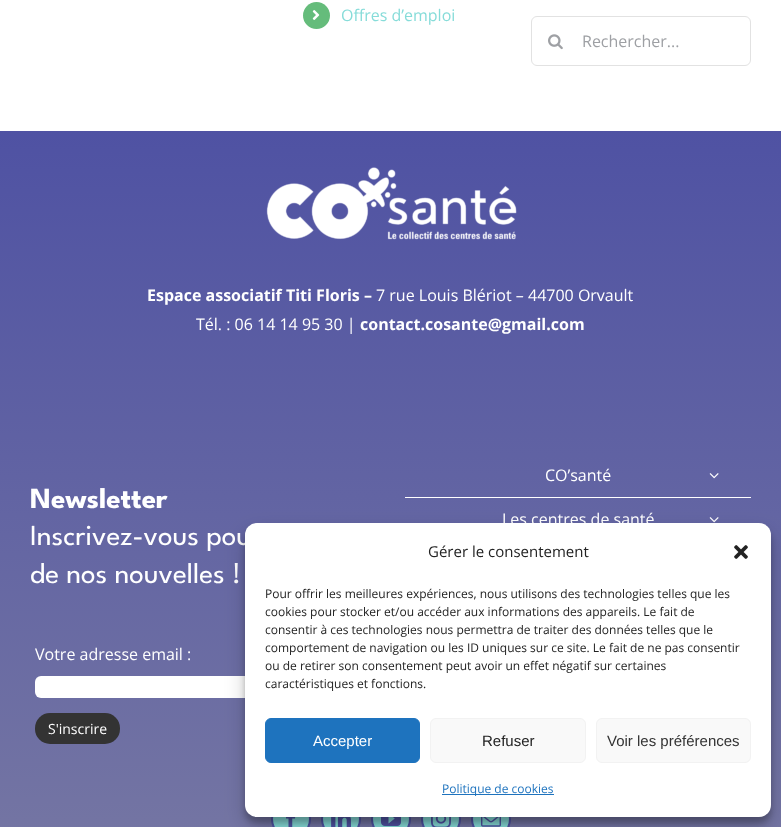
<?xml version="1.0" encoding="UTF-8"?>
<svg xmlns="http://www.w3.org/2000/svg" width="781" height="827">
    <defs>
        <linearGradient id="g1" gradientUnits="userSpaceOnUse" x1="390" y1="131" x2="391" y2="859"><stop offset="0" stop-color="#4F52A3"/><stop offset="1" stop-color="#7576A3"/></linearGradient>
        <filter id="blur1" x="-50%" y="-200%" width="200%" height="500%"><feGaussianBlur stdDeviation="3"/></filter>
        <filter id="blur2" x="-50%" y="-200%" width="200%" height="500%"><feGaussianBlur stdDeviation="10"/></filter>
    </defs>
    <rect width="100%" height="100%" fill="#FFFFFF"/>
    <circle cx="316.5" cy="15.5" r="13.5" fill="#65BC7B"/>
    <image x="312" y="10" width="8" height="10" href="img_01.png"/>
    <text x="341" y="21" font-family="Open Sans" font-size="16" fill="#86DCD9">Offres d’emploi</text>
    <rect x="531.5" y="16.5" width="219" height="49" rx="5.5" fill="none" stroke="#E2E2E2"/>
    <image x="548" y="34" width="15" height="16" href="img_02.png"/>
    <text x="582" y="47" font-family="Open Sans" font-size="16" fill="#9EA0A4">Rechercher...</text>
    <rect x="0" y="131" width="781" height="696" fill="url(#g1)"/>
    <image x="266" y="167" width="251" height="73" href="img_03.png"/>
    <text x="147" y="301" font-family="Open Sans" font-size="16" font-weight="700" fill="#FFFFFF">Espace associatif Titi Floris –</text>
    <text x="376" y="301" font-family="Open Sans" font-size="16" fill="#FFFFFF">7 rue Louis Blériot – 44700 Orvault</text>
    <text x="196" y="330" font-family="Open Sans" font-size="16" fill="#FFFFFF">Tél. : 06 14 14 95 30 |</text>
    <text x="360" y="330" font-family="Open Sans" font-size="16" font-weight="700" fill="#FFFFFF">contact.cosante@gmail.com</text>
    <text x="30" y="508" font-family="League Spartan" font-size="29" font-weight="700" fill="#FFFFFF">Newsletter</text>
    <text font-family="League Spartan" font-size="29" fill="#FFFFFF">
        <tspan x="30" y="545">Inscrivez-vous pou</tspan>
        <tspan x="30" y="583">de nos nouvelles !</tspan>
    </text>
    <text x="35" y="660" font-family="Open Sans" font-size="16" fill="#FFFFFF">Votre adresse email :</text>
    <rect x="35" y="676" width="336" height="22" rx="6" fill="#FFFFFF"/>
    <rect x="35" y="713" width="85" height="31" rx="15" fill="#333333"/>
    <text x="48" y="734" font-family="Open Sans" font-size="14" fill="#FFFFFF">S'inscrire</text>
    <rect x="405" y="497" width="346" height="1" fill="#FFFFFF"/>
    <text x="545" y="481" font-family="Open Sans" font-size="16" fill="#FFFFFF">CO’santé</text>
    <image x="709" y="473" width="10" height="6" href="img_04.png"/>
    <text x="502" y="525" font-family="Open Sans" font-size="16" fill="#FFFFFF">Les centres de santé</text>
    <image x="709" y="517" width="10" height="6" href="img_05.png"/>
    <circle cx="291" cy="819" r="19" fill="#86DCD9" stroke="#4F52A3" stroke-width="2"/>
    <image x="286" y="817" width="10" height="10" href="img_06.png"/>
    <circle cx="341" cy="819" r="19" fill="#86DCD9" stroke="#4F52A3" stroke-width="2"/>
    <image x="331" y="817" width="20" height="10" href="img_07.png"/>
    <circle cx="391" cy="819" r="19" fill="#86DCD9" stroke="#4F52A3" stroke-width="2"/>
    <image x="381" y="817" width="20" height="9" href="img_08.png"/>
    <circle cx="441" cy="819" r="19" fill="#86DCD9" stroke="#4F52A3" stroke-width="2"/>
    <image x="431" y="817" width="20" height="10" href="img_09.png"/>
    <circle cx="491" cy="819" r="19" fill="#86DCD9" stroke="#4F52A3" stroke-width="2"/>
    <image x="481" y="817" width="20" height="10" href="img_10.png"/>
    <rect x="245" y="529" width="526" height="294" rx="12" fill="#000000" fill-opacity="0.23" filter="url(#blur1)"/>
    <rect x="245" y="533" width="526" height="294" rx="12" fill="#000000" fill-opacity="0.19" filter="url(#blur2)"/>
    <rect x="245" y="523" width="526" height="294" rx="12" fill="#FFFFFF"/>
    <text x="428" y="557" font-family="Open Sans" font-size="15" fill="#222222">Gérer le consentement</text>
    <image x="734" y="545" width="14" height="14" href="img_11.png"/>
    <text font-family="Open Sans" font-size="12" fill="#222222">
        <tspan x="265" y="598">Pour offrir les meilleures expériences, nous utilisons des technologies telles que les</tspan>
        <tspan x="265" y="616">cookies pour stocker et/ou accéder aux informations des appareils. Le fait de</tspan>
        <tspan x="265" y="634">consentir à ces technologies nous permettra de traiter des données telles que le</tspan>
        <tspan x="265" y="652">comportement de navigation ou les ID uniques sur ce site. Le fait de ne pas consentir</tspan>
        <tspan x="265" y="670">ou de retirer son consentement peut avoir un effet négatif sur certaines</tspan>
        <tspan x="265" y="688">caractéristiques et fonctions.</tspan>
    </text>
    <rect x="265.5" y="718.5" width="154" height="44" rx="5.5" fill="#1E73BE" stroke="#1E73BE"/>
    <text x="313" y="746" font-family="Liberation Sans" font-size="15" fill="#FFFFFF">Accepter</text>
    <rect x="430.5" y="718.5" width="155" height="44" rx="5.5" fill="#F9F9F9" stroke="#F2F2F2"/>
    <text x="482" y="746" font-family="Liberation Sans" font-size="15" fill="#222222">Refuser</text>
    <rect x="596.5" y="718.5" width="154" height="44" rx="5.5" fill="#F9F9F9" stroke="#F2F2F2"/>
    <text x="607" y="746" font-family="Liberation Sans" font-size="15" fill="#333333">Voir les préférences</text>
    <rect x="442" y="794" width="112" height="1" fill="#1E73BE"/>
    <text x="442" y="793" font-family="Open Sans" font-size="12" fill="#1E73BE">Politique de cookies</text>
</svg>
